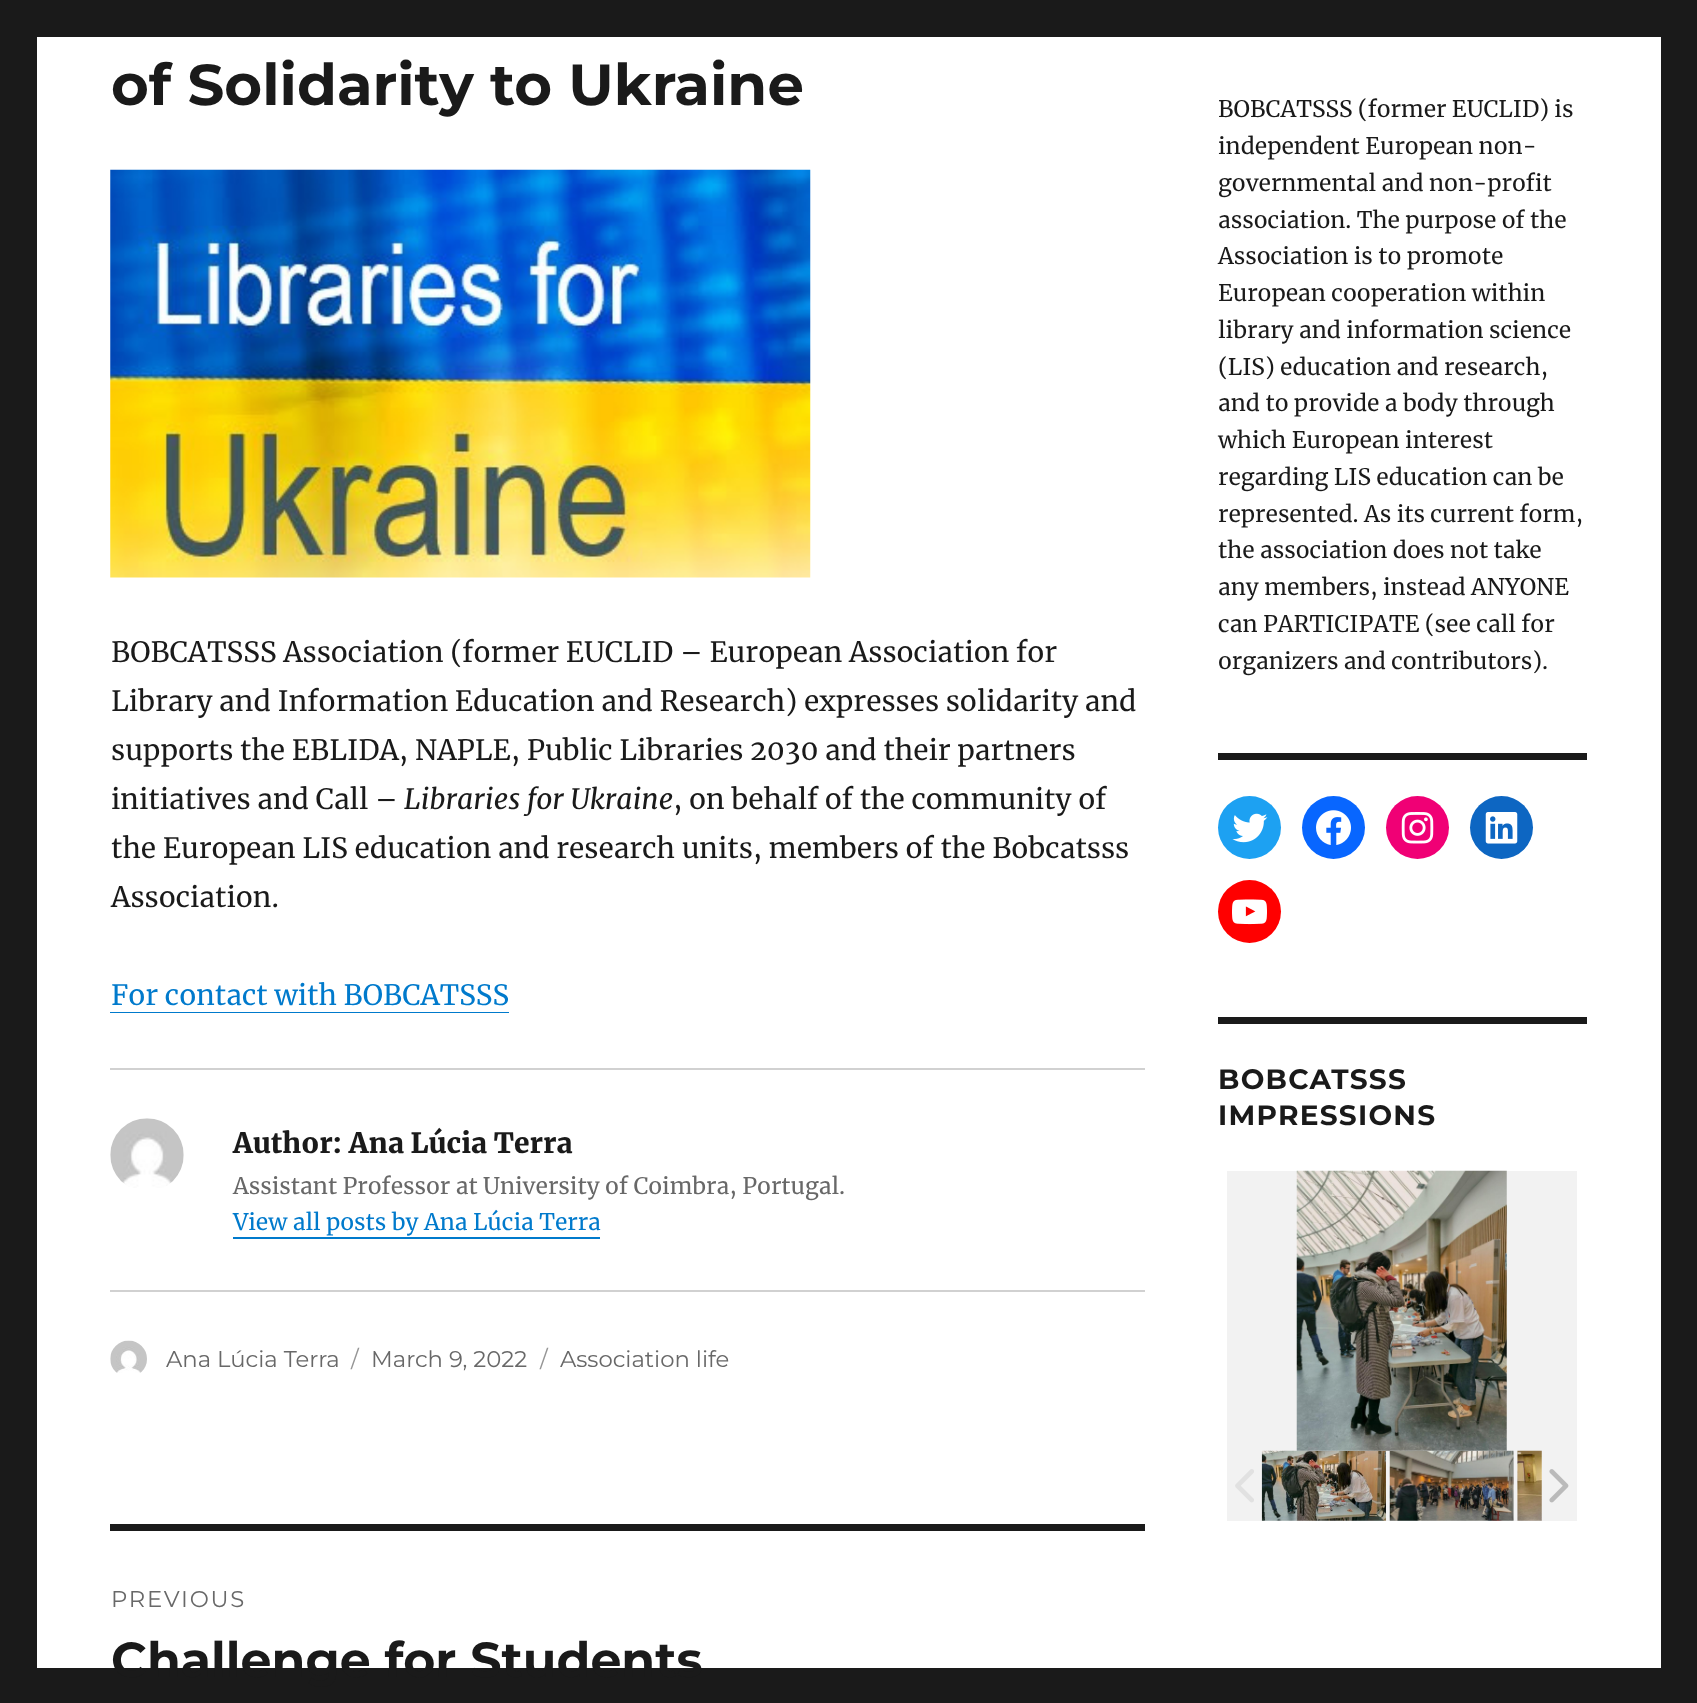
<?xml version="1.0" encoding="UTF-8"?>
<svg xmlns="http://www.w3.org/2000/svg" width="1697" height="1703">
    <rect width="100%" height="100%" fill="#1A1A1A"/>
    <rect x="37" y="37" width="1624" height="1631" fill="#FFFFFF"/>
    <text x="111" y="105" font-family="'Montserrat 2'" font-size="57.75" font-weight="100" fill="#1A1A1A">of Solidarity to Ukraine</text>
    <image x="110" y="169" width="701" height="409" href="img_01.png"/>
    <text font-family="Merriweather" font-size="28" fill="#1A1A1A">
        <tspan x="111" y="662">BOBCATSSS Association (former EUCLID – European Association for</tspan>
        <tspan x="111" y="711">Library and Information Education and Research) expresses solidarity and</tspan>
        <tspan x="111" y="760">supports the EBLIDA, NAPLE, Public Libraries 2030 and their partners</tspan>
        <tspan x="111" y="809">initiatives and Call –</tspan>
    </text>
    <text x="404" y="809" font-family="Merriweather" font-size="28" font-style="italic" fill="#1A1A1A">Libraries for Ukraine</text>
    <text x="673" y="809" font-family="Merriweather" font-size="28" fill="#1A1A1A">, on behalf of the community of</text>
    <text font-family="Merriweather" font-size="28" fill="#1A1A1A">
        <tspan x="111" y="858">the European LIS education and research units, members of the Bobcatsss</tspan>
        <tspan x="111" y="907">Association.</tspan>
    </text>
    <text x="111" y="1005" font-family="Merriweather" font-size="28" fill="#007ACC">For contact with BOBCATSSS</text>
    <path d="M 110 978 V 1013 H 509 V 1012 H 110 Z" fill="#007ACC"/>
    <rect x="110" y="1068" width="1035" height="2" fill="#D1D1D1"/>
    <rect x="110" y="1290" width="1035" height="2" fill="#D1D1D1"/>
    <image x="110" y="1118" width="74" height="70" href="img_02.png"/>
    <text x="233" y="1153" font-family="Merriweather" font-size="28" font-weight="900" fill="#1A1A1A">Author: Ana Lúcia Terra</text>
    <text x="233" y="1194" font-family="Merriweather" font-size="22.75" fill="#686868">Assistant Professor at University of Coimbra, Portugal.</text>
    <text x="233" y="1230" font-family="Merriweather" font-size="22.75" fill="#007ACC">View all posts by Ana Lúcia Terra</text>
    <rect x="233" y="1237" width="367" height="2" fill="#007ACC"/>
    <image x="110" y="1340" width="37" height="33" href="img_03.png"/>
    <text x="166" y="1367" font-family="Montserrat" font-size="22.75" font-weight="100" fill="#686868">Ana Lúcia Terra</text>
    <text x="351" y="1367" font-family="Montserrat" font-size="22.75" font-weight="100" fill="#959595">/</text>
    <text x="371" y="1367" font-family="Montserrat" font-size="22.75" font-weight="100" fill="#686868">March 9, 2022</text>
    <text x="540" y="1367" font-family="Montserrat" font-size="22.75" font-weight="100" fill="#959595">/</text>
    <text x="560" y="1367" font-family="Montserrat" font-size="22.75" font-weight="100" fill="#686868">Association life</text>
    <rect x="110" y="1524" width="1035" height="7" fill="#1A1A1A"/>
    <text x="111" y="1607" font-family="Montserrat" font-size="22.75" font-weight="100" letter-spacing="1.75" fill="#686868">PREVIOUS</text>
    <text x="111" y="1677" font-family="'Montserrat 2'" font-size="49" font-weight="100" fill="#1A1A1A">Challenge for Students</text>
    <text font-family="Merriweather" font-size="22.75" fill="#1A1A1A">
        <tspan x="1218" y="117">BOBCATSSS (former EUCLID) is</tspan>
        <tspan x="1218" y="154">independent European non-</tspan>
        <tspan x="1218" y="191">governmental and non-profit</tspan>
        <tspan x="1218" y="228">association. The purpose of the</tspan>
        <tspan x="1218" y="264">Association is to promote</tspan>
        <tspan x="1218" y="301">European cooperation within</tspan>
        <tspan x="1218" y="338">library and information science</tspan>
        <tspan x="1218" y="375">(LIS) education and research,</tspan>
        <tspan x="1218" y="411">and to provide a body through</tspan>
        <tspan x="1218" y="448">which European interest</tspan>
        <tspan x="1218" y="485">regarding LIS education can be</tspan>
        <tspan x="1218" y="522">represented. As its current form,</tspan>
        <tspan x="1218" y="558">the association does not take</tspan>
        <tspan x="1218" y="595">any members, instead ANYONE</tspan>
        <tspan x="1218" y="632">can PARTICIPATE (see call for</tspan>
        <tspan x="1218" y="669">organizers and contributors).</tspan>
    </text>
    <rect x="1218" y="753" width="369" height="7" fill="#1A1A1A"/>
    <circle cx="1249.5" cy="827.5" r="31.5" fill="#1DA1F2"/>
    <image x="1232" y="813" width="36" height="30" href="img_04.png"/>
    <circle cx="1333.5" cy="827.5" r="31.5" fill="#0866FF"/>
    <image x="1316" y="810" width="35" height="35" href="img_05.png"/>
    <circle cx="1417.5" cy="827.5" r="31.5" fill="#F00075"/>
    <image x="1401" y="812" width="33" height="32" href="img_06.png"/>
    <circle cx="1501.5" cy="827.5" r="31.5" fill="#0D66C2"/>
    <image x="1485" y="812" width="33" height="32" href="img_07.png"/>
    <circle cx="1249.5" cy="911.5" r="31.5" fill="#FF0000"/>
    <image x="1232" y="899" width="35" height="26" href="img_08.png"/>
    <rect x="1218" y="1017" width="369" height="7" fill="#1A1A1A"/>
    <text font-family="'Montserrat 2'" font-size="28" font-weight="100" letter-spacing="1.25" fill="#1A1A1A">
        <tspan x="1218" y="1089">BOBCATSSS</tspan>
        <tspan x="1218" y="1125">IMPRESSIONS</tspan>
    </text>
    <rect x="1227" y="1171" width="350" height="350" fill="#F2F2F2"/>
    <image x="1261" y="1450" width="125" height="71" href="img_11.png"/>
    <image x="1389" y="1450" width="125" height="71" href="img_12.png"/>
    <image x="1296" y="1170" width="211" height="281" href="img_09.png"/>
    <image x="1235" y="1469" width="19" height="34" href="img_10.png"/>
    <image x="1517" y="1450" width="25" height="71" href="img_13.png"/>
    <image x="1549" y="1469" width="20" height="34" href="img_14.png"/>
</svg>
